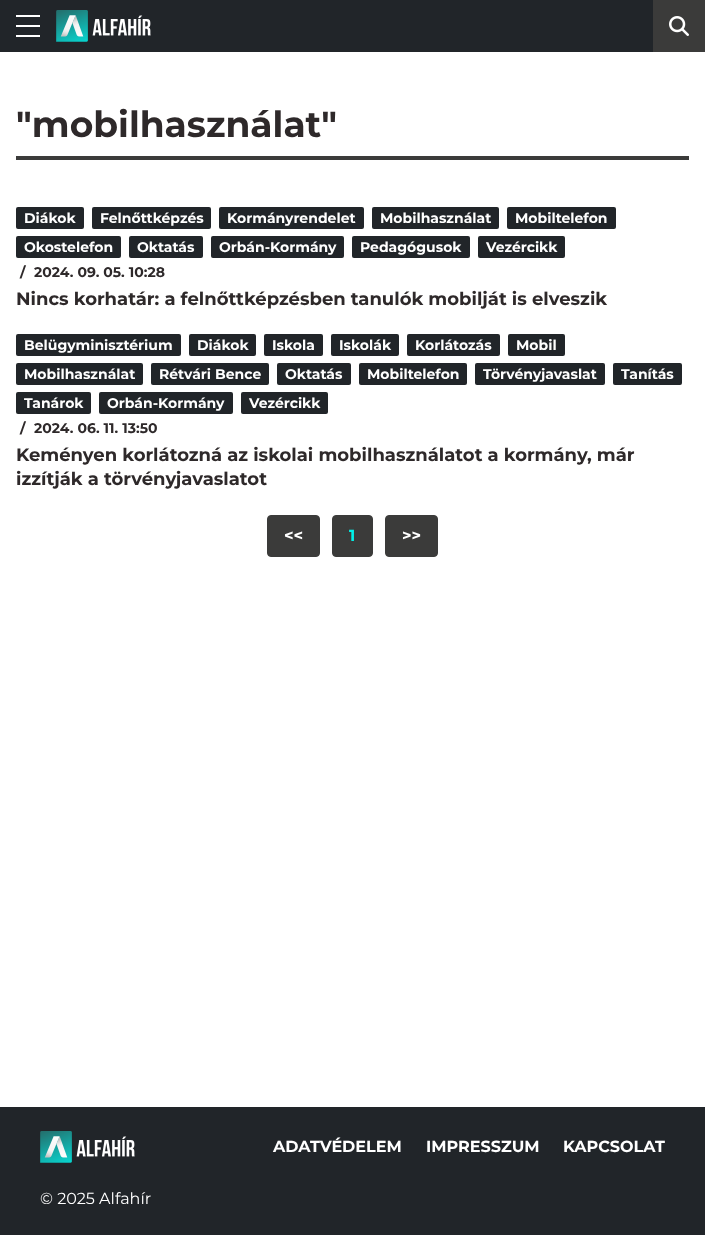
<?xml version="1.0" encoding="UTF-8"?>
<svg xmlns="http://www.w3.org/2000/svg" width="705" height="1235">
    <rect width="100%" height="100%" fill="#FFFFFF"/>
    <rect x="0" y="0" width="653" height="52" fill="#212529"/>
    <rect x="16" y="15" width="24" height="2" fill="#FFFFFF"/>
    <rect x="16" y="25" width="24" height="2" fill="#FFFFFF"/>
    <rect x="16" y="35" width="24" height="2" fill="#FFFFFF"/>
    <image x="56" y="10" width="95" height="32" href="img_01.png"/>
    <rect x="653" y="0" width="52" height="52" fill="#3B3B3A"/>
    <image x="669" y="16" width="20" height="20" href="img_02.png"/>
    <rect x="16" y="156" width="673" height="4" fill="#3B3B3A"/>
    <text x="16" y="137" font-family="Montserrat" font-size="36" font-weight="700" fill="#2E292A">"mobilhasználat"</text>
    <rect x="16" y="207" width="68" height="22" rx="2" fill="#212529"/>
    <text x="24" y="223" font-family="Montserrat" font-size="14" font-weight="700" fill="#FFFFFF">Diákok</text>
    <rect x="92" y="207" width="119" height="22" rx="2" fill="#212529"/>
    <text x="100" y="223" font-family="Montserrat" font-size="14" font-weight="700" fill="#FFFFFF">Felnőttképzés</text>
    <rect x="219" y="207" width="145" height="22" rx="2" fill="#212529"/>
    <text x="227" y="223" font-family="Montserrat" font-size="14" font-weight="700" fill="#FFFFFF">Kormányrendelet</text>
    <rect x="372" y="207" width="127" height="22" rx="2" fill="#212529"/>
    <text x="380" y="223" font-family="Montserrat" font-size="14" font-weight="700" fill="#FFFFFF">Mobilhasználat</text>
    <rect x="507" y="207" width="109" height="22" rx="2" fill="#212529"/>
    <text x="515" y="223" font-family="Montserrat" font-size="14" font-weight="700" fill="#FFFFFF">Mobiltelefon</text>
    <rect x="16" y="236" width="105" height="22" rx="2" fill="#212529"/>
    <text x="24" y="252" font-family="Montserrat" font-size="14" font-weight="700" fill="#FFFFFF">Okostelefon</text>
    <rect x="129" y="236" width="74" height="22" rx="2" fill="#212529"/>
    <text x="137" y="252" font-family="Montserrat" font-size="14" font-weight="700" fill="#FFFFFF">Oktatás</text>
    <rect x="211" y="236" width="133" height="22" rx="2" fill="#212529"/>
    <text x="219" y="252" font-family="Montserrat" font-size="14" font-weight="700" fill="#FFFFFF">Orbán-Kormány</text>
    <rect x="352" y="236" width="118" height="22" rx="2" fill="#212529"/>
    <text x="360" y="252" font-family="Montserrat" font-size="14" font-weight="700" fill="#FFFFFF">Pedagógusok</text>
    <rect x="478" y="236" width="87" height="22" rx="2" fill="#212529"/>
    <text x="486" y="252" font-family="Montserrat" font-size="14" font-weight="700" fill="#FFFFFF">Vezércikk</text>
    <text x="20" y="277" font-family="Montserrat" font-size="14" font-weight="700" fill="#2E292A">/</text>
    <text x="34" y="277" font-family="Montserrat" font-size="14" font-weight="700" fill="#2E292A">2024. 09. 05. 10:28</text>
    <text x="16" y="305" font-family="Montserrat" font-size="18" font-weight="700" fill="#2E292A">Nincs korhatár: a felnőttképzésben tanulók mobilját is elveszik</text>
    <rect x="16" y="334" width="165" height="22" rx="2" fill="#212529"/>
    <text x="24" y="350" font-family="Montserrat" font-size="14" font-weight="700" fill="#FFFFFF">Belügyminisztérium</text>
    <rect x="189" y="334" width="67" height="22" rx="2" fill="#212529"/>
    <text x="197" y="350" font-family="Montserrat" font-size="14" font-weight="700" fill="#FFFFFF">Diákok</text>
    <rect x="264" y="334" width="59" height="22" rx="2" fill="#212529"/>
    <text x="272" y="350" font-family="Montserrat" font-size="14" font-weight="700" fill="#FFFFFF">Iskola</text>
    <rect x="331" y="334" width="68" height="22" rx="2" fill="#212529"/>
    <text x="339" y="350" font-family="Montserrat" font-size="14" font-weight="700" fill="#FFFFFF">Iskolák</text>
    <rect x="407" y="334" width="93" height="22" rx="2" fill="#212529"/>
    <text x="415" y="350" font-family="Montserrat" font-size="14" font-weight="700" fill="#FFFFFF">Korlátozás</text>
    <rect x="508" y="334" width="57" height="22" rx="2" fill="#212529"/>
    <text x="516" y="350" font-family="Montserrat" font-size="14" font-weight="700" fill="#FFFFFF">Mobil</text>
    <rect x="16" y="363" width="127" height="22" rx="2" fill="#212529"/>
    <text x="24" y="379" font-family="Montserrat" font-size="14" font-weight="700" fill="#FFFFFF">Mobilhasználat</text>
    <rect x="151" y="363" width="118" height="22" rx="2" fill="#212529"/>
    <text x="159" y="379" font-family="Montserrat" font-size="14" font-weight="700" fill="#FFFFFF">Rétvári Bence</text>
    <rect x="277" y="363" width="74" height="22" rx="2" fill="#212529"/>
    <text x="285" y="379" font-family="Montserrat" font-size="14" font-weight="700" fill="#FFFFFF">Oktatás</text>
    <rect x="359" y="363" width="108" height="22" rx="2" fill="#212529"/>
    <text x="367" y="379" font-family="Montserrat" font-size="14" font-weight="700" fill="#FFFFFF">Mobiltelefon</text>
    <rect x="475" y="363" width="130" height="22" rx="2" fill="#212529"/>
    <text x="483" y="379" font-family="Montserrat" font-size="14" font-weight="700" fill="#FFFFFF">Törvényjavaslat</text>
    <rect x="613" y="363" width="69" height="22" rx="2" fill="#212529"/>
    <text x="621" y="379" font-family="Montserrat" font-size="14" font-weight="700" fill="#FFFFFF">Tanítás</text>
    <rect x="16" y="392" width="75" height="22" rx="2" fill="#212529"/>
    <text x="24" y="408" font-family="Montserrat" font-size="14" font-weight="700" fill="#FFFFFF">Tanárok</text>
    <rect x="99" y="392" width="134" height="22" rx="2" fill="#212529"/>
    <text x="107" y="408" font-family="Montserrat" font-size="14" font-weight="700" fill="#FFFFFF">Orbán-Kormány</text>
    <rect x="241" y="392" width="87" height="22" rx="2" fill="#212529"/>
    <text x="249" y="408" font-family="Montserrat" font-size="14" font-weight="700" fill="#FFFFFF">Vezércikk</text>
    <text x="20" y="433" font-family="Montserrat" font-size="14" font-weight="700" fill="#2E292A">/</text>
    <text x="34" y="433" font-family="Montserrat" font-size="14" font-weight="700" fill="#2E292A">2024. 06. 11. 13:50</text>
    <text font-family="Montserrat" font-size="18" font-weight="700" fill="#2E292A">
        <tspan x="16" y="461">Keményen korlátozná az iskolai mobilhasználatot a kormány, már</tspan>
        <tspan x="16" y="485">izzítják a törvényjavaslatot</tspan>
    </text>
    <rect x="267.5" y="515.5" width="52" height="41" rx="3.5" fill="#3B3B3A" stroke="#3B3B3A"/>
    <text x="284" y="541" font-family="Montserrat" font-size="16" font-weight="700" fill="#FFFFFF">&lt;&lt;</text>
    <rect x="332.5" y="515.5" width="40" height="41" rx="3.5" fill="#3B3B3A" stroke="#3B3B3A"/>
    <text x="349" y="541" font-family="Montserrat" font-size="16" font-weight="700" fill="#00F0E8">1</text>
    <rect x="385.5" y="515.5" width="52" height="41" rx="3.5" fill="#3B3B3A" stroke="#3B3B3A"/>
    <text x="402" y="541" font-family="Montserrat" font-size="16" font-weight="700" fill="#FFFFFF">&gt;&gt;</text>
    <rect x="0" y="1107" width="705" height="128" fill="#212529"/>
    <image x="40" y="1131" width="95" height="32" href="img_03.png"/>
    <text x="273" y="1152" font-family="Montserrat" font-size="16" font-weight="700" fill="#FFFFFF">ADATVÉDELEM</text>
    <text x="426" y="1152" font-family="Montserrat" font-size="16" font-weight="700" fill="#FFFFFF">IMPRESSZUM</text>
    <text x="563" y="1152" font-family="Montserrat" font-size="16" font-weight="700" fill="#FFFFFF">KAPCSOLAT</text>
    <text x="40" y="1204" font-family="Montserrat" font-size="16" fill="#FFFFFF">© 2025 Alfahír</text>
</svg>
